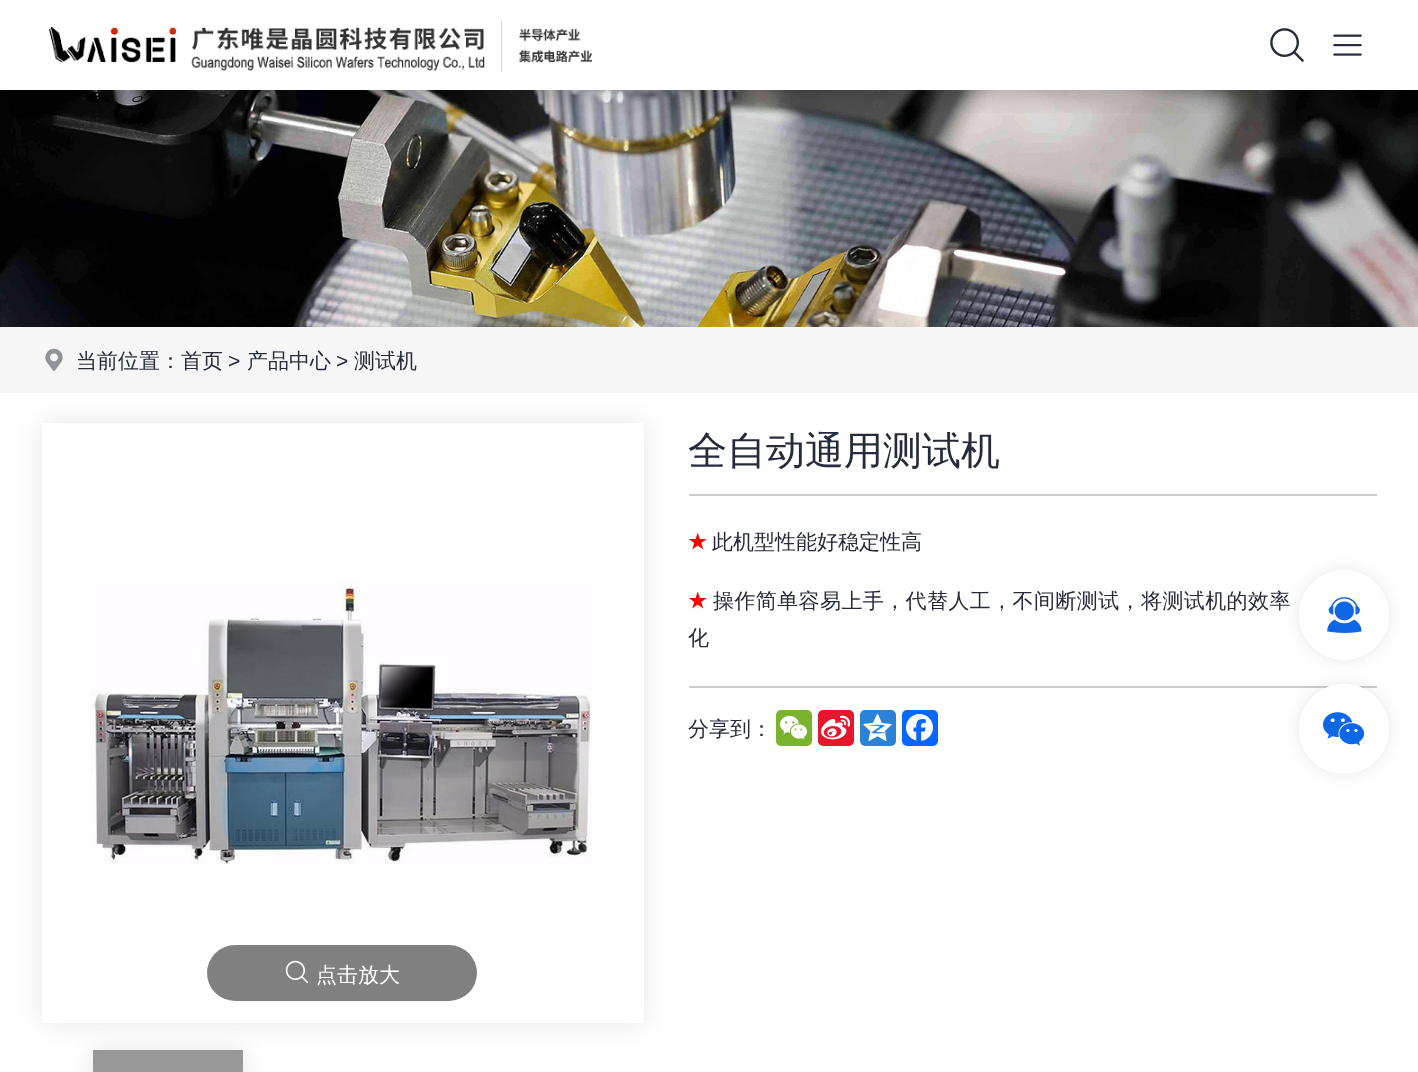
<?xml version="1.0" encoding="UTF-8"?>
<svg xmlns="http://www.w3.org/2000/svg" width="1418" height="1072">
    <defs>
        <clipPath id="clip1"><rect x="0" y="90" width="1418" height="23"/></clipPath>
        <filter id="blur1" x="-50%" y="-200%" width="200%" height="500%"><feGaussianBlur stdDeviation="15"/></filter>
        <clipPath id="clip2"><path d="M 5 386 H 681 V 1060 H 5 Z M 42 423 H 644 V 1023 H 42 Z" clip-rule="evenodd"/></clipPath>
        <filter id="blur2" x="-50%" y="-200%" width="200%" height="500%"><feGaussianBlur stdDeviation="12"/></filter>
        <filter id="blur3" x="-50%" y="-200%" width="200%" height="500%"><feGaussianBlur stdDeviation="7.5"/></filter>
    </defs>
    <rect width="100%" height="100%" fill="#FFFFFF"/>
    <image x="0" y="90" width="1418" height="237" href="img_05.png"/>
    <g clip-path="url(#clip1)">
        <rect x="0" y="0" width="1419" height="90" fill="#000000" fill-opacity="0.3" filter="url(#blur1)"/>
    </g>
    <image x="49" y="27" width="436" height="44" href="img_01.png"/>
    <image x="501" y="20" width="91" height="52" href="img_02.png"/>
    <image x="1270" y="28" width="34" height="34" href="img_03.png"/>
    <image x="1333" y="34" width="29" height="22" href="img_04.png"/>
    <rect x="0" y="327" width="1418" height="66" fill="#F6F6F6"/>
    <image x="45" y="348" width="18" height="24" href="img_06.png"/>
    <text x="76" y="368" font-family="WenQuanYi Zen Hei" font-size="21" font-weight="500" fill="#252B3A">当前位置：首页</text>
    <text x="228" y="368" font-family="Liberation Sans" font-size="21" fill="#252B3A">&gt;</text>
    <text x="247" y="368" font-family="WenQuanYi Zen Hei" font-size="21" font-weight="500" fill="#252B3A">产品中心</text>
    <text x="336" y="368" font-family="Liberation Sans" font-size="21" fill="#252B3A">&gt;</text>
    <text x="354" y="368" font-family="WenQuanYi Zen Hei" font-size="21" font-weight="500" fill="#252B3A">测试机</text>
    <text x="688" y="464" font-family="WenQuanYi Zen Hei" font-size="39" font-weight="500" fill="#252B3A">全自动通用测试机</text>
    <rect x="689" y="494" width="688" height="2" fill="#CBCBCB"/>
    <rect x="689" y="686" width="688" height="2" fill="#CBCBCB"/>
    <text x="688" y="549" font-family="DejaVu Sans" font-size="21" font-weight="700" fill="#FF0000">★</text>
    <text x="712" y="549" font-family="WenQuanYi Zen Hei" font-size="21" font-weight="500" fill="#252B3A">此机型性能好稳定性高</text>
    <text x="688" y="608" font-family="DejaVu Sans" font-size="21" font-weight="700" fill="#FF0000">★</text>
    <text x="713" y="608" font-family="WenQuanYi Zen Hei" font-size="21" font-weight="500" letter-spacing="0.4" fill="#252B3A">操作简单容易上手，代替人工，不间断测试，将测试机的效率</text>
    <text x="688" y="645" font-family="WenQuanYi Zen Hei" font-size="21" font-weight="500" fill="#252B3A">化</text>
    <text x="688" y="736" font-family="WenQuanYi Zen Hei" font-size="21" font-weight="500" fill="#252B3A">分享到：</text>
    <rect x="776" y="710" width="36" height="36" rx="5" fill="#7BB32E"/>
    <image x="780" y="715" width="27" height="24" href="img_07.png"/>
    <rect x="818" y="710" width="36" height="36" rx="5" fill="#E6162D"/>
    <image x="820" y="715" width="31" height="25" href="img_08.png"/>
    <rect x="860" y="710" width="36" height="36" rx="5" fill="#2B82D9"/>
    <image x="863" y="714" width="29" height="27" href="img_09.png"/>
    <rect x="902" y="710" width="36" height="36" rx="5" fill="#0866FF"/>
    <image x="906" y="714" width="27" height="27" href="img_10.png"/>
    <g clip-path="url(#clip2)">
        <rect x="42" y="423" width="602" height="600" fill="#000000" fill-opacity="0.1" filter="url(#blur2)"/>
    </g>
    <image x="90" y="581" width="503" height="283" href="img_11.png"/>
    <rect x="207" y="945" width="270" height="56" rx="28" fill="#808080"/>
    <image x="285" y="960" width="24" height="24" href="img_12.png"/>
    <text x="316" y="982" font-family="WenQuanYi Zen Hei" font-size="21" font-weight="500" fill="#FFFFFF">点击放大</text>
    <rect x="93" y="1050" width="150" height="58" fill="#000000" fill-opacity="0.1" filter="url(#blur2)"/>
    <rect x="93" y="1050" width="150" height="22" fill="#999999"/>
    <rect x="1299" y="570" width="90" height="90" rx="45" fill="#000000" fill-opacity="0.1" filter="url(#blur3)"/>
    <circle cx="1344" cy="615" r="41" fill="#FFFFFF" stroke="#FFFFFF" stroke-width="8"/>
    <image x="1327" y="597" width="35" height="36" href="img_13.png"/>
    <rect x="1299" y="684" width="90" height="90" rx="45" fill="#000000" fill-opacity="0.1" filter="url(#blur3)"/>
    <circle cx="1344" cy="729" r="41" fill="#FFFFFF" stroke="#FFFFFF" stroke-width="8"/>
    <image x="1323" y="712" width="42" height="34" href="img_14.png"/>
</svg>
